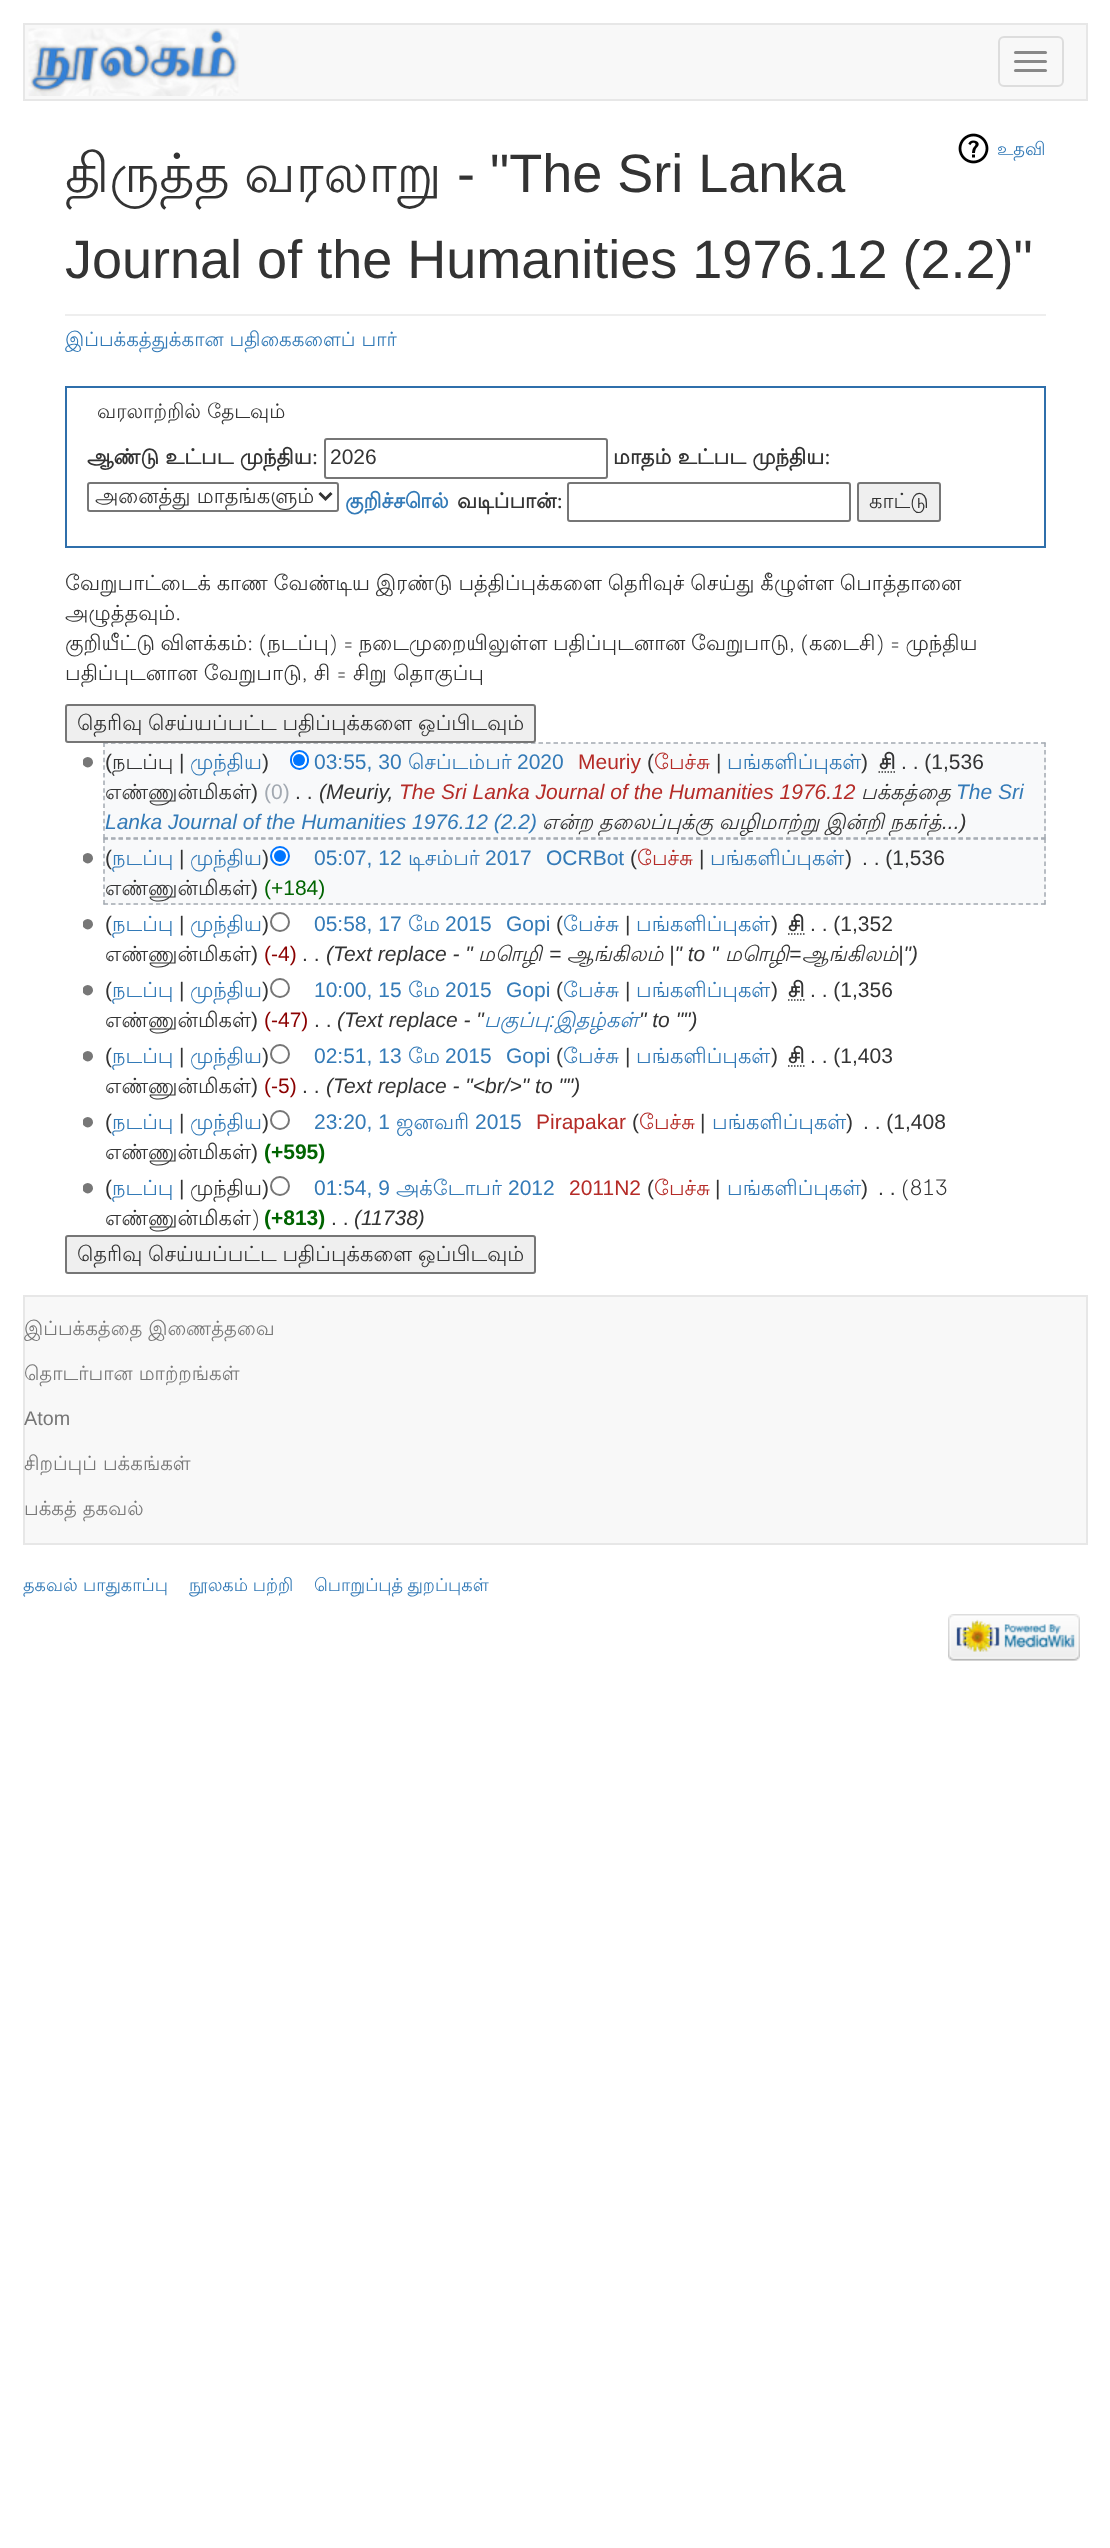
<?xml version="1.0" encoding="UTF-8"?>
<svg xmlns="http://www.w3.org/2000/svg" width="1110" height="2548">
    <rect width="100%" height="100%" fill="#FFFFFF"/>
    <rect x="24" y="24" width="1063" height="76" fill="#F8F8F8" stroke="#E7E7E7" stroke-width="2"/>
    <image x="28" y="28" width="211" height="68" href="img_01.png"/>
    <rect x="999" y="37" width="64" height="49" rx="5" fill="none" stroke="#DDDDDD" stroke-width="2"/>
    <rect x="1014" y="51" width="33" height="3" rx="1.5" fill="#888888"/>
    <rect x="1014" y="60" width="33" height="3" rx="1.5" fill="#888888"/>
    <rect x="1014" y="69" width="33" height="3" rx="1.5" fill="#888888"/>
    <image x="958" y="133" width="31" height="31" href="img_02.png"/>
    <text x="997" y="155" font-family="Lohit Tamil" font-size="18" fill="#337AB7">உதவி</text>
    <rect x="65" y="314" width="981" height="2" fill="#EEEEEE"/>
    <text x="65" y="192" font-family="Lohit Tamil" font-size="54" fill="#333333">திருத்த</text>
    <text x="244" y="192" font-family="Lohit Tamil" font-size="54" fill="#333333">வரலாறு</text>
    <text x="457" y="192" font-family="Liberation Sans" font-size="54" fill="#333333">- "The Sri Lanka</text>
    <text x="65" y="278" font-family="Liberation Sans" font-size="54" fill="#333333">Journal of the Humanities 1976.12 (2.2)"</text>
    <text x="65" y="346" font-family="Lohit Tamil" font-size="19.75" fill="#337AB7">இப்பக்கத்துக்கான பதிகைகளைப் பார்</text>
    <rect x="66" y="387" width="979" height="160" fill="none" stroke="#2F6FAB" stroke-width="2"/>
    <text x="97" y="418" font-family="Lohit Tamil" font-size="20" fill="#333333">வரலாற்றில் தேடவும்</text>
    <text x="87" y="464" font-family="Lohit Tamil" font-size="21" font-weight="700" fill="#333333">ஆண்டு உட்பட முந்திய:</text>
    <rect x="325" y="439" width="282" height="39" rx="2" fill="none" stroke="#767676" stroke-width="2"/>
    <text x="330" y="464" font-family="Liberation Sans" font-size="21" fill="#333333">2026</text>
    <text x="613" y="464" font-family="Lohit Tamil" font-size="21" font-weight="700" fill="#333333">மாதம் உட்பட முந்திய:</text>
    <rect x="88" y="483" width="250" height="28" rx="2" fill="none" stroke="#767676" stroke-width="2"/>
    <path d="M 319.5 493 L 325.5 499 L 331.5 493" fill="none" stroke="#333333" stroke-width="3"/>
    <text x="95" y="503" font-family="Lohit Tamil" font-size="21" fill="#333333">அனைத்து மாதங்களும்</text>
    <text x="345" y="508" font-family="Lohit Tamil" font-size="21" font-weight="700" fill="#337AB7">குறிச்சொல்</text>
    <text x="457" y="508" font-family="Lohit Tamil" font-size="21" font-weight="700" fill="#333333">வடிப்பான்:</text>
    <rect x="568" y="483" width="282" height="38" rx="2" fill="none" stroke="#767676" stroke-width="2"/>
    <rect x="858" y="483" width="82" height="38" rx="2" fill="#EFEFEF" stroke="#767676" stroke-width="2"/>
    <text x="869" y="508" font-family="Lohit Tamil" font-size="21" fill="#333333">காட்டு</text>
    <text font-family="Lohit Tamil" font-size="21" fill="#333333">
        <tspan x="65" y="590" word-spacing="-0.5">வேறுபாட்டைக் காண வேண்டிய இரண்டு பத்திப்புக்களை தெரிவுச் செய்து கீழுள்ள பொத்தானை</tspan>
        <tspan x="65" y="620">அழுத்தவும்.</tspan>
        <tspan x="65" y="650" word-spacing="-0.75">குறியீட்டு விளக்கம்: (நடப்பு) = நடைமுறையிலுள்ள பதிப்புடனான வேறுபாடு, (கடைசி) = முந்திய</tspan>
        <tspan x="65" y="680">பதிப்புடனான வேறுபாடு, சி = சிறு தொகுப்பு</tspan>
    </text>
    <rect x="104" y="743" width="942" height="162" fill="#F8F9FA"/>
    <path d="M 103.5 743 H 1045.5" fill="none" stroke="#A2A9B1" stroke-width="1.5" stroke-dasharray="4.5 3"/>
    <path d="M 1045 742.5 V 838.5" fill="none" stroke="#A2A9B1" stroke-width="1.5" stroke-dasharray="4.5 3.12"/>
    <path d="M 103.5 838 H 1045.5" fill="none" stroke="#A2A9B1" stroke-width="1.5" stroke-dasharray="4.5 3"/>
    <path d="M 104 742.5 V 838.5" fill="none" stroke="#A2A9B1" stroke-width="1.5" stroke-dasharray="4.5 3.12"/>
    <rect x="66" y="705" width="469" height="37" rx="2" fill="#EFEFEF" stroke="#767676" stroke-width="2"/>
    <text x="77" y="730" word-spacing="-0.5" font-family="Lohit Tamil" font-size="21" fill="#333333">தெரிவு செய்யப்பட்ட பதிப்புக்களை ஒப்பிடவும்</text>
    <image x="83" y="757" width="10" height="11" href="img_03.png"/>
    <text x="105" y="769" font-family="Liberation Sans" font-size="21" fill="#333333">(</text>
    <text x="112" y="769" font-family="Lohit Tamil" font-size="21" fill="#333333">நடப்பு</text>
    <text x="179" y="769" font-family="Liberation Sans" font-size="21" fill="#333333">|</text>
    <text x="190" y="769" font-family="Lohit Tamil" font-size="21" fill="#337AB7">முந்திய</text>
    <text x="262" y="769" font-family="Liberation Sans" font-size="21" fill="#333333">)</text>
    <rect x="291" y="751" width="17" height="18" rx="8.5" fill="#FFFFFF" stroke="#0075FF" stroke-width="2"/>
    <circle cx="299" cy="760" r="6" fill="#0075FF"/>
    <text x="314" y="769" font-family="Liberation Sans" font-size="21" fill="#337AB7">03:55, 30</text>
    <text x="408" y="769" font-family="Lohit Tamil" font-size="21" fill="#337AB7">செப்டம்பர்</text>
    <text x="517" y="769" font-family="Liberation Sans" font-size="21" fill="#337AB7">2020</text>
    <text x="578" y="769" font-family="Liberation Sans" font-size="21" fill="#B52B27">Meuriy</text>
    <text x="647" y="769" font-family="Liberation Sans" font-size="21" fill="#333333">(</text>
    <text x="654" y="769" font-family="Lohit Tamil" font-size="21" fill="#B52B27">பேச்சு</text>
    <text x="716" y="769" font-family="Liberation Sans" font-size="21" fill="#333333">|</text>
    <text x="727" y="769" font-family="Lohit Tamil" font-size="21" fill="#337AB7">பங்களிப்புகள்</text>
    <text x="861" y="769" font-family="Liberation Sans" font-size="21" fill="#333333">)</text>
    <text x="879" y="769" font-family="Lohit Tamil" font-size="21" font-weight="700" fill="#333333">சி</text>
    <path d="M 878.5 772 H 895" fill="none" stroke="#333333" stroke-width="1.5" stroke-dasharray="1.5 1.5"/>
    <text x="901" y="769" font-family="Liberation Sans" font-size="21" fill="#333333">. . (1,536</text>
    <text x="105" y="799" font-family="Lohit Tamil" font-size="21" fill="#333333">எண்ணுன்மிகள்</text>
    <text x="251" y="799" font-family="Liberation Sans" font-size="21" fill="#333333">)</text>
    <text x="264" y="799" font-family="Liberation Sans" font-size="21" fill="#A2A9B1">(0)</text>
    <text x="295" y="799" font-family="Liberation Sans" font-size="21" fill="#333333">. .</text>
    <text x="319" y="799" font-family="Liberation Sans" font-size="21" font-style="italic" fill="#333333">(Meuriy,</text>
    <text x="399" y="799" font-family="Liberation Sans" font-size="21" font-style="italic" fill="#B52B27">The Sri Lanka Journal of the Humanities 1976.12</text>
    <text x="861" y="799" font-family="Lohit Tamil" font-size="21" font-style="italic" fill="#333333">பக்கத்தை</text>
    <text x="956" y="799" font-family="Liberation Sans" font-size="21" font-style="italic" fill="#337AB7">The Sri</text>
    <text x="105" y="829" font-family="Liberation Sans" font-size="21" font-style="italic" fill="#337AB7">Lanka Journal of the Humanities 1976.12 (2.2)</text>
    <text x="542" y="829" word-spacing="-0.5" font-family="Lohit Tamil" font-size="21" font-style="italic" fill="#333333">என்ற தலைப்புக்கு வழிமாற்று இன்றி நகர்த்</text>
    <text x="942" y="829" font-family="Liberation Sans" font-size="21" font-style="italic" fill="#333333">...)</text>
    <path d="M 103.5 839 H 1045.5" fill="none" stroke="#A2A9B1" stroke-width="1.5" stroke-dasharray="4.5 3"/>
    <path d="M 1045 838.5 V 904.5" fill="none" stroke="#A2A9B1" stroke-width="1.5" stroke-dasharray="4.5 3.18"/>
    <path d="M 103.5 904 H 1045.5" fill="none" stroke="#A2A9B1" stroke-width="1.5" stroke-dasharray="4.5 3"/>
    <path d="M 104 838.5 V 904.5" fill="none" stroke="#A2A9B1" stroke-width="1.5" stroke-dasharray="4.5 3.18"/>
    <image x="83" y="853" width="10" height="11" href="img_03.png"/>
    <text x="105" y="865" font-family="Liberation Sans" font-size="21" fill="#333333">(</text>
    <text x="112" y="865" font-family="Lohit Tamil" font-size="21" fill="#337AB7">நடப்பு</text>
    <text x="179" y="865" font-family="Liberation Sans" font-size="21" fill="#333333">|</text>
    <text x="190" y="865" font-family="Lohit Tamil" font-size="21" fill="#337AB7">முந்திய</text>
    <text x="262" y="865" font-family="Liberation Sans" font-size="21" fill="#333333">)</text>
    <circle cx="280" cy="856" r="9" fill="#FFFFFF" stroke="#0075FF" stroke-width="2"/>
    <circle cx="280" cy="856" r="6" fill="#0075FF"/>
    <text x="314" y="865" font-family="Liberation Sans" font-size="21" fill="#337AB7">05:07, 12</text>
    <text x="408" y="865" font-family="Lohit Tamil" font-size="21" fill="#337AB7">டிசம்பர்</text>
    <text x="485" y="865" font-family="Liberation Sans" font-size="21" fill="#337AB7">2017</text>
    <text x="546" y="865" font-family="Liberation Sans" font-size="21" fill="#337AB7">OCRBot</text>
    <text x="630" y="865" font-family="Liberation Sans" font-size="21" fill="#333333">(</text>
    <text x="637" y="865" font-family="Lohit Tamil" font-size="21" fill="#B52B27">பேச்சு</text>
    <text x="699" y="865" font-family="Liberation Sans" font-size="21" fill="#333333">|</text>
    <text x="710" y="865" font-family="Lohit Tamil" font-size="21" fill="#337AB7">பங்களிப்புகள்</text>
    <text x="845" y="865" font-family="Liberation Sans" font-size="21" fill="#333333">)</text>
    <text x="862" y="865" font-family="Liberation Sans" font-size="21" fill="#333333">. . (1,536</text>
    <text x="105" y="895" font-family="Lohit Tamil" font-size="21" fill="#333333">எண்ணுன்மிகள்</text>
    <text x="251" y="895" font-family="Liberation Sans" font-size="21" fill="#333333">)</text>
    <text x="264" y="895" font-family="Liberation Sans" font-size="21" fill="#006400">(+184)</text>
    <image x="83" y="919" width="10" height="11" href="img_03.png"/>
    <text x="105" y="931" font-family="Liberation Sans" font-size="21" fill="#333333">(</text>
    <text x="112" y="931" font-family="Lohit Tamil" font-size="21" fill="#337AB7">நடப்பு</text>
    <text x="179" y="931" font-family="Liberation Sans" font-size="21" fill="#333333">|</text>
    <text x="190" y="931" font-family="Lohit Tamil" font-size="21" fill="#337AB7">முந்திய</text>
    <text x="262" y="931" font-family="Liberation Sans" font-size="21" fill="#333333">)</text>
    <circle cx="280" cy="922" r="9" fill="none" stroke="#767676" stroke-width="2"/>
    <text x="314" y="931" font-family="Liberation Sans" font-size="21" fill="#337AB7">05:58, 17</text>
    <text x="408" y="931" font-family="Lohit Tamil" font-size="21" fill="#337AB7">மே</text>
    <text x="445" y="931" font-family="Liberation Sans" font-size="21" fill="#337AB7">2015</text>
    <text x="506" y="931" font-family="Liberation Sans" font-size="21" fill="#337AB7">Gopi</text>
    <text x="556" y="931" font-family="Liberation Sans" font-size="21" fill="#333333">(</text>
    <text x="563" y="931" font-family="Lohit Tamil" font-size="21" fill="#337AB7">பேச்சு</text>
    <text x="625" y="931" font-family="Liberation Sans" font-size="21" fill="#333333">|</text>
    <text x="636" y="931" font-family="Lohit Tamil" font-size="21" fill="#337AB7">பங்களிப்புகள்</text>
    <text x="771" y="931" font-family="Liberation Sans" font-size="21" fill="#333333">)</text>
    <text x="788" y="931" font-family="Lohit Tamil" font-size="21" font-weight="700" fill="#333333">சி</text>
    <path d="M 788 934 H 804.5" fill="none" stroke="#333333" stroke-width="1.5" stroke-dasharray="1.5 1.5"/>
    <text x="810" y="931" font-family="Liberation Sans" font-size="21" fill="#333333">. . (1,352</text>
    <text x="105" y="961" font-family="Lohit Tamil" font-size="21" fill="#333333">எண்ணுன்மிகள்</text>
    <text x="251" y="961" font-family="Liberation Sans" font-size="21" fill="#333333">)</text>
    <text x="264" y="961" font-family="Liberation Sans" font-size="21" fill="#8B0000">(-4)</text>
    <text x="326" y="961" font-family="Liberation Sans" font-size="21" font-style="italic" fill="#333333">(Text replace - "</text>
    <text x="478" y="961" font-family="Lohit Tamil" font-size="21" font-style="italic" fill="#333333">மொழி</text>
    <text x="549" y="961" font-family="Liberation Sans" font-size="21" font-style="italic" fill="#333333">=</text>
    <text x="567" y="961" font-family="Lohit Tamil" font-size="21" font-style="italic" fill="#333333">ஆங்கிலம்</text>
    <text x="669" y="961" font-family="Liberation Sans" font-size="21" font-style="italic" fill="#333333">|" to "</text>
    <text x="725" y="961" font-family="Lohit Tamil" font-size="21" font-style="italic" fill="#333333">மொழி</text>
    <text x="789" y="961" font-family="Liberation Sans" font-size="21" font-style="italic" fill="#333333">=</text>
    <text x="802" y="961" font-family="Lohit Tamil" font-size="21" font-style="italic" fill="#333333">ஆங்கிலம்</text>
    <text x="898" y="961" font-family="Liberation Sans" font-size="21" font-style="italic" fill="#333333">|")</text>
    <text x="302" y="961" font-family="Liberation Sans" font-size="21" fill="#333333">. .</text>
    <image x="83" y="985" width="10" height="11" href="img_03.png"/>
    <text x="105" y="997" font-family="Liberation Sans" font-size="21" fill="#333333">(</text>
    <text x="112" y="997" font-family="Lohit Tamil" font-size="21" fill="#337AB7">நடப்பு</text>
    <text x="179" y="997" font-family="Liberation Sans" font-size="21" fill="#333333">|</text>
    <text x="190" y="997" font-family="Lohit Tamil" font-size="21" fill="#337AB7">முந்திய</text>
    <text x="262" y="997" font-family="Liberation Sans" font-size="21" fill="#333333">)</text>
    <circle cx="280" cy="988" r="9" fill="none" stroke="#767676" stroke-width="2"/>
    <text x="314" y="997" font-family="Liberation Sans" font-size="21" fill="#337AB7">10:00, 15</text>
    <text x="408" y="997" font-family="Lohit Tamil" font-size="21" fill="#337AB7">மே</text>
    <text x="445" y="997" font-family="Liberation Sans" font-size="21" fill="#337AB7">2015</text>
    <text x="506" y="997" font-family="Liberation Sans" font-size="21" fill="#337AB7">Gopi</text>
    <text x="556" y="997" font-family="Liberation Sans" font-size="21" fill="#333333">(</text>
    <text x="563" y="997" font-family="Lohit Tamil" font-size="21" fill="#337AB7">பேச்சு</text>
    <text x="625" y="997" font-family="Liberation Sans" font-size="21" fill="#333333">|</text>
    <text x="636" y="997" font-family="Lohit Tamil" font-size="21" fill="#337AB7">பங்களிப்புகள்</text>
    <text x="771" y="997" font-family="Liberation Sans" font-size="21" fill="#333333">)</text>
    <text x="788" y="997" font-family="Lohit Tamil" font-size="21" font-weight="700" fill="#333333">சி</text>
    <path d="M 788 1000 H 804.5" fill="none" stroke="#333333" stroke-width="1.5" stroke-dasharray="1.5 1.5"/>
    <text x="810" y="997" font-family="Liberation Sans" font-size="21" fill="#333333">. . (1,356</text>
    <text x="105" y="1027" font-family="Lohit Tamil" font-size="21" fill="#333333">எண்ணுன்மிகள்</text>
    <text x="251" y="1027" font-family="Liberation Sans" font-size="21" fill="#333333">)</text>
    <text x="264" y="1027" font-family="Liberation Sans" font-size="21" fill="#8B0000">(-47)</text>
    <text x="314" y="1027" font-family="Liberation Sans" font-size="21" fill="#333333">. .</text>
    <text x="337" y="1027" font-family="Liberation Sans" font-size="21" font-style="italic" fill="#333333">(Text replace - "</text>
    <text x="484" y="1027" font-family="Lohit Tamil" font-size="21" font-style="italic" fill="#337AB7">பகுப்பு</text>
    <text x="549" y="1027" font-family="Liberation Sans" font-size="21" font-style="italic" fill="#337AB7">:</text>
    <text x="555" y="1027" font-family="Lohit Tamil" font-size="21" font-style="italic" fill="#337AB7">இதழ்கள்</text>
    <text x="639" y="1027" font-family="Liberation Sans" font-size="21" font-style="italic" fill="#333333">" to "")</text>
    <image x="83" y="1051" width="10" height="11" href="img_03.png"/>
    <text x="105" y="1063" font-family="Liberation Sans" font-size="21" fill="#333333">(</text>
    <text x="112" y="1063" font-family="Lohit Tamil" font-size="21" fill="#337AB7">நடப்பு</text>
    <text x="179" y="1063" font-family="Liberation Sans" font-size="21" fill="#333333">|</text>
    <text x="190" y="1063" font-family="Lohit Tamil" font-size="21" fill="#337AB7">முந்திய</text>
    <text x="262" y="1063" font-family="Liberation Sans" font-size="21" fill="#333333">)</text>
    <circle cx="280" cy="1054" r="9" fill="none" stroke="#767676" stroke-width="2"/>
    <text x="314" y="1063" font-family="Liberation Sans" font-size="21" fill="#337AB7">02:51, 13</text>
    <text x="408" y="1063" font-family="Lohit Tamil" font-size="21" fill="#337AB7">மே</text>
    <text x="445" y="1063" font-family="Liberation Sans" font-size="21" fill="#337AB7">2015</text>
    <text x="506" y="1063" font-family="Liberation Sans" font-size="21" fill="#337AB7">Gopi</text>
    <text x="556" y="1063" font-family="Liberation Sans" font-size="21" fill="#333333">(</text>
    <text x="563" y="1063" font-family="Lohit Tamil" font-size="21" fill="#337AB7">பேச்சு</text>
    <text x="625" y="1063" font-family="Liberation Sans" font-size="21" fill="#333333">|</text>
    <text x="636" y="1063" font-family="Lohit Tamil" font-size="21" fill="#337AB7">பங்களிப்புகள்</text>
    <text x="771" y="1063" font-family="Liberation Sans" font-size="21" fill="#333333">)</text>
    <text x="788" y="1063" font-family="Lohit Tamil" font-size="21" font-weight="700" fill="#333333">சி</text>
    <path d="M 788 1066 H 804.5" fill="none" stroke="#333333" stroke-width="1.5" stroke-dasharray="1.5 1.5"/>
    <text x="810" y="1063" font-family="Liberation Sans" font-size="21" fill="#333333">. . (1,403</text>
    <text x="105" y="1093" font-family="Lohit Tamil" font-size="21" fill="#333333">எண்ணுன்மிகள்</text>
    <text x="251" y="1093" font-family="Liberation Sans" font-size="21" fill="#333333">)</text>
    <text x="264" y="1093" font-family="Liberation Sans" font-size="21" fill="#8B0000">(-5)</text>
    <text x="302" y="1093" font-family="Liberation Sans" font-size="21" fill="#333333">. .</text>
    <text x="326" y="1093" font-family="Liberation Sans" font-size="21" font-style="italic" fill="#333333">(Text replace - "&lt;br/&gt;" to "")</text>
    <image x="83" y="1117" width="10" height="11" href="img_03.png"/>
    <text x="105" y="1129" font-family="Liberation Sans" font-size="21" fill="#333333">(</text>
    <text x="112" y="1129" font-family="Lohit Tamil" font-size="21" fill="#337AB7">நடப்பு</text>
    <text x="179" y="1129" font-family="Liberation Sans" font-size="21" fill="#333333">|</text>
    <text x="190" y="1129" font-family="Lohit Tamil" font-size="21" fill="#337AB7">முந்திய</text>
    <text x="262" y="1129" font-family="Liberation Sans" font-size="21" fill="#333333">)</text>
    <circle cx="280" cy="1120" r="9" fill="none" stroke="#767676" stroke-width="2"/>
    <text x="314" y="1129" font-family="Liberation Sans" font-size="21" fill="#337AB7">23:20, 1</text>
    <text x="396" y="1129" font-family="Lohit Tamil" font-size="21" fill="#337AB7">ஜனவரி</text>
    <text x="475" y="1129" font-family="Liberation Sans" font-size="21" fill="#337AB7">2015</text>
    <text x="536" y="1129" font-family="Liberation Sans" font-size="21" fill="#B52B27">Pirapakar</text>
    <text x="632" y="1129" font-family="Liberation Sans" font-size="21" fill="#333333">(</text>
    <text x="639" y="1129" font-family="Lohit Tamil" font-size="21" fill="#B52B27">பேச்சு</text>
    <text x="700" y="1129" font-family="Liberation Sans" font-size="21" fill="#333333">|</text>
    <text x="712" y="1129" font-family="Lohit Tamil" font-size="21" fill="#337AB7">பங்களிப்புகள்</text>
    <text x="846" y="1129" font-family="Liberation Sans" font-size="21" fill="#333333">)</text>
    <text x="863" y="1129" font-family="Liberation Sans" font-size="21" fill="#333333">. . (1,408</text>
    <text x="105" y="1159" font-family="Lohit Tamil" font-size="21" fill="#333333">எண்ணுன்மிகள்</text>
    <text x="251" y="1159" font-family="Liberation Sans" font-size="21" fill="#333333">)</text>
    <text x="264" y="1159" font-family="Liberation Sans" font-size="21" font-weight="700" fill="#006400">(+595)</text>
    <image x="83" y="1183" width="10" height="11" href="img_03.png"/>
    <text x="105" y="1195" font-family="Liberation Sans" font-size="21" fill="#333333">(</text>
    <text x="112" y="1195" font-family="Lohit Tamil" font-size="21" fill="#337AB7">நடப்பு</text>
    <text x="179" y="1195" font-family="Liberation Sans" font-size="21" fill="#333333">|</text>
    <text x="190" y="1195" font-family="Lohit Tamil" font-size="21" fill="#333333">முந்திய</text>
    <text x="262" y="1195" font-family="Liberation Sans" font-size="21" fill="#333333">)</text>
    <circle cx="280" cy="1186" r="9" fill="none" stroke="#767676" stroke-width="2"/>
    <text x="314" y="1195" font-family="Liberation Sans" font-size="21" fill="#337AB7">01:54, 9</text>
    <text x="396" y="1195" font-family="Lohit Tamil" font-size="21" fill="#337AB7">அக்டோபர்</text>
    <text x="508" y="1195" font-family="Liberation Sans" font-size="21" fill="#337AB7">2012</text>
    <text x="569" y="1195" font-family="Liberation Sans" font-size="21" fill="#B52B27">2011N2</text>
    <text x="647" y="1195" font-family="Liberation Sans" font-size="21" fill="#333333">(</text>
    <text x="654" y="1195" font-family="Lohit Tamil" font-size="21" fill="#B52B27">பேச்சு</text>
    <text x="715" y="1195" font-family="Liberation Sans" font-size="21" fill="#333333">|</text>
    <text x="727" y="1195" font-family="Lohit Tamil" font-size="21" fill="#337AB7">பங்களிப்புகள்</text>
    <text x="861" y="1195" font-family="Liberation Sans" font-size="21" fill="#333333">)</text>
    <text x="878" y="1195" font-family="Liberation Sans" font-size="21" fill="#333333">. .</text>
    <text x="901" y="1195" font-family="Lohit Tamil" font-size="21" fill="#333333">(813</text>
    <text x="105" y="1225" font-family="Lohit Tamil" font-size="21" fill="#333333">எண்ணுன்மிகள்)</text>
    <text x="264" y="1225" font-family="Liberation Sans" font-size="21" font-weight="700" fill="#006400">(+813)</text>
    <text x="331" y="1225" font-family="Liberation Sans" font-size="21" fill="#333333">. .</text>
    <text x="354" y="1225" font-family="Liberation Sans" font-size="21" font-style="italic" fill="#333333">(11738)</text>
    <rect x="66" y="1236" width="469" height="37" rx="2" fill="#EFEFEF" stroke="#767676" stroke-width="2"/>
    <text x="77" y="1261" word-spacing="-0.5" font-family="Lohit Tamil" font-size="21" fill="#333333">தெரிவு செய்யப்பட்ட பதிப்புக்களை ஒப்பிடவும்</text>
    <rect x="24" y="1296" width="1063" height="248" fill="#F8F8F8" stroke="#E7E7E7" stroke-width="2"/>
    <text x="24" y="1335" font-family="Lohit Tamil" font-size="19.75" fill="#777777">இப்பக்கத்தை இணைத்தவை</text>
    <text x="24" y="1380" font-family="Lohit Tamil" font-size="19.75" fill="#777777">தொடர்பான மாற்றங்கள்</text>
    <text x="24" y="1425" font-family="Liberation Sans" font-size="19.75" fill="#777777">Atom</text>
    <text x="24" y="1470" font-family="Lohit Tamil" font-size="19.75" fill="#777777">சிறப்புப் பக்கங்கள்</text>
    <text x="24" y="1515" font-family="Lohit Tamil" font-size="19.75" fill="#777777">பக்கத் தகவல்</text>
    <text x="23" y="1591" font-family="Lohit Tamil" font-size="17.75" fill="#337AB7">தகவல் பாதுகாப்பு</text>
    <text x="189" y="1591" word-spacing="-0.5" font-family="Lohit Tamil" font-size="17.75" fill="#337AB7">நூலகம் பற்றி</text>
    <text x="314" y="1591" word-spacing="-1" font-family="Lohit Tamil" font-size="17.75" fill="#337AB7">பொறுப்புத் துறப்புகள்</text>
    <image x="948" y="1614" width="132" height="47" href="img_04.png"/>
</svg>
